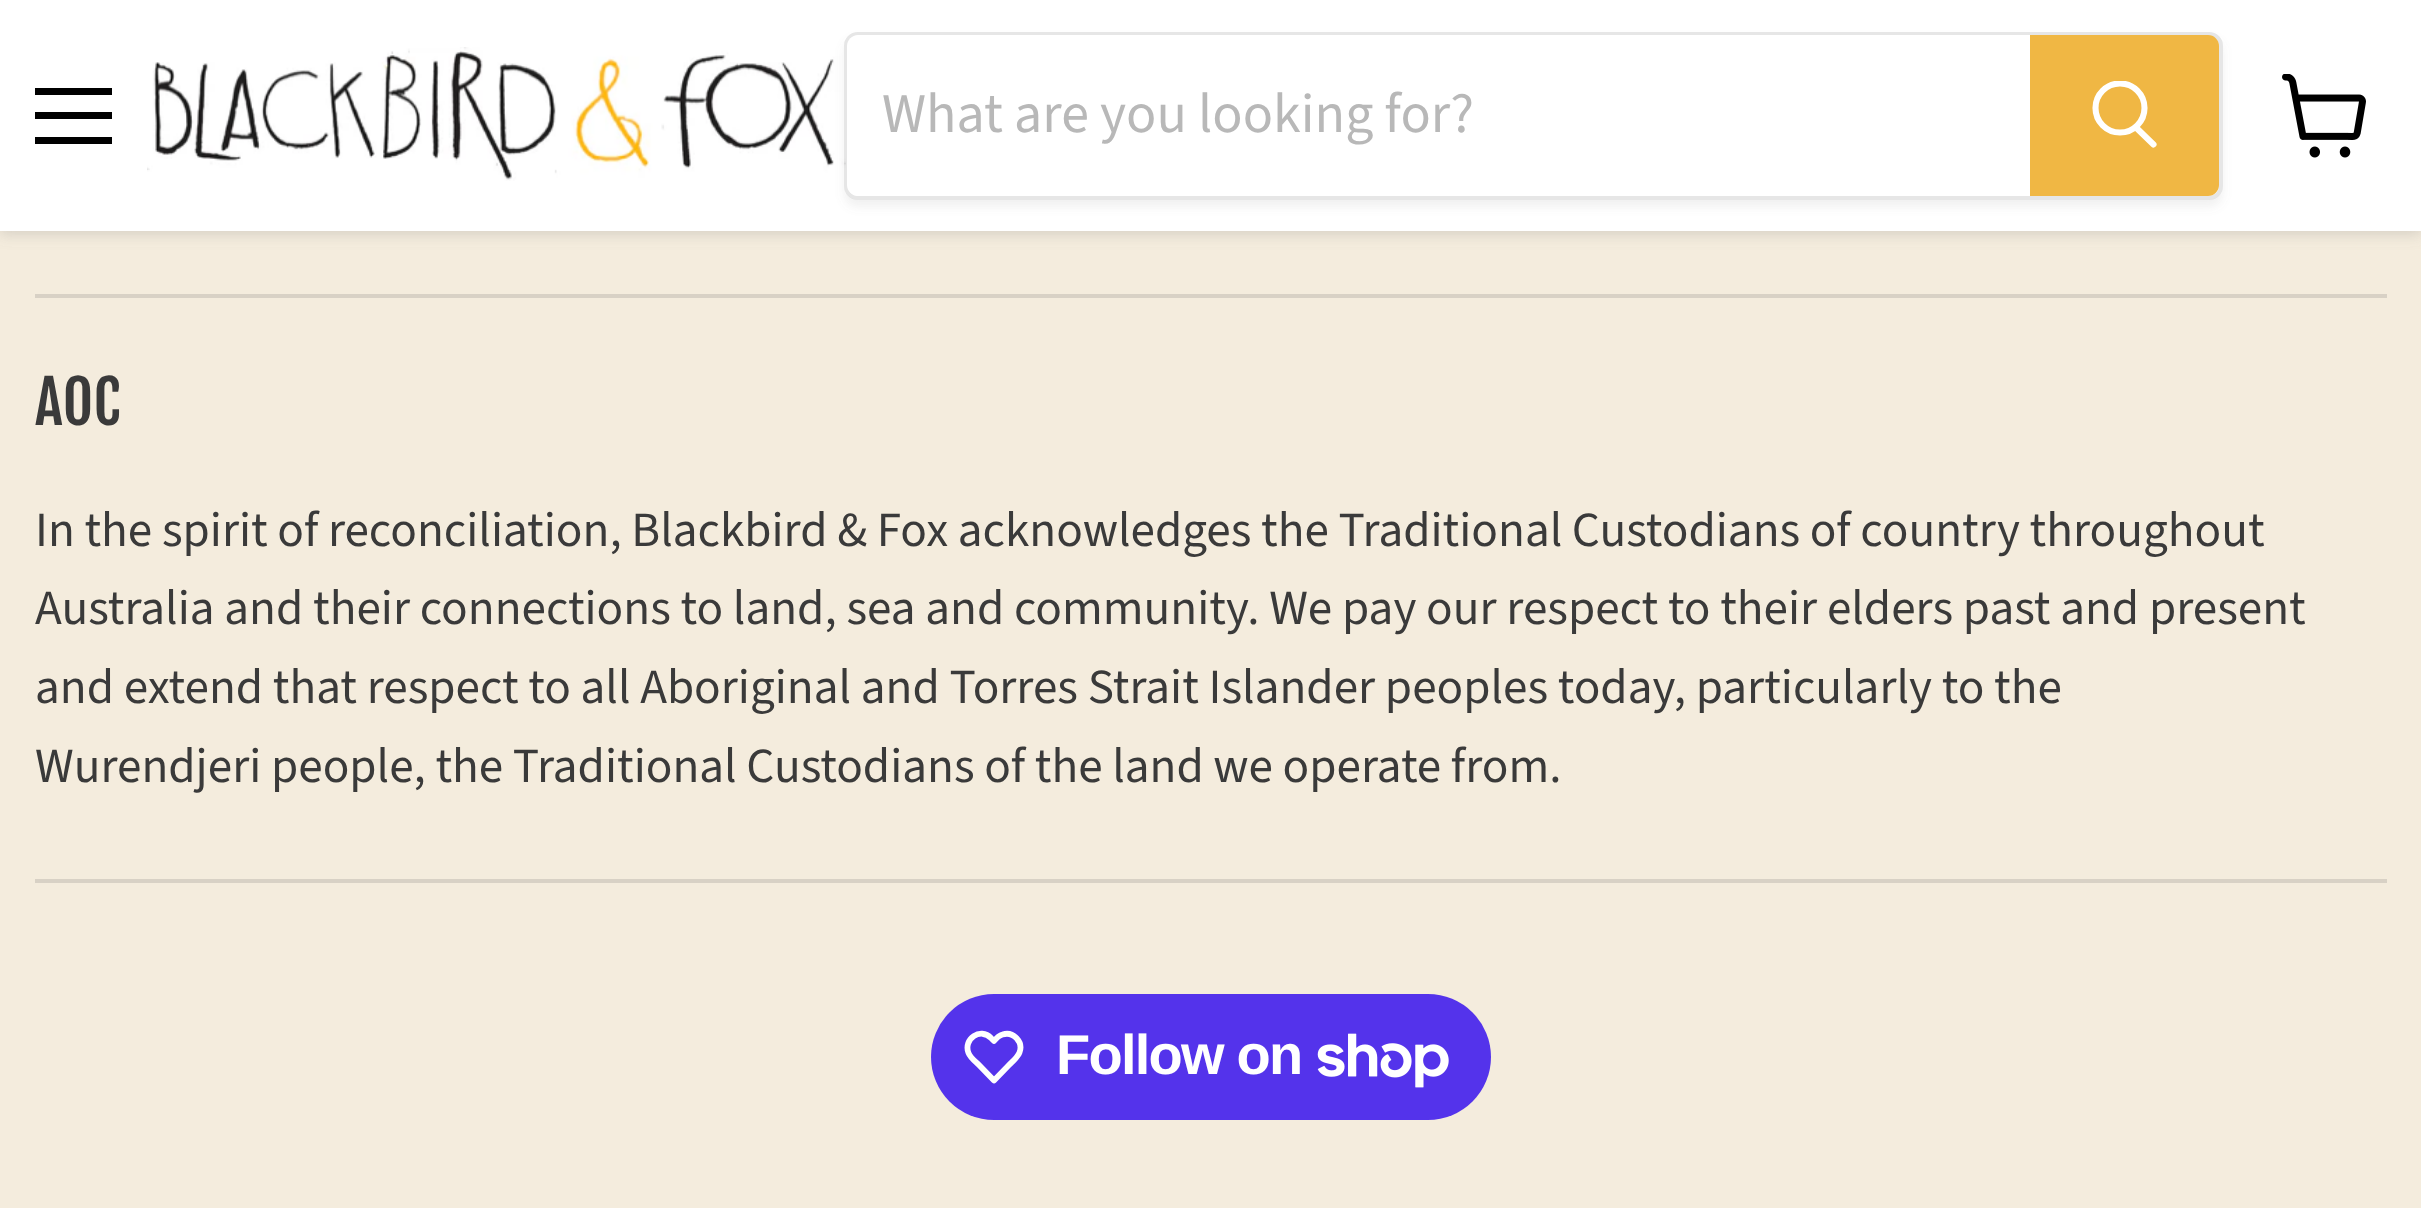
<?xml version="1.0" encoding="UTF-8"?>
<svg xmlns="http://www.w3.org/2000/svg" width="2421" height="1208">
    <defs>
        <filter id="blur1" x="-50%" y="-200%" width="200%" height="500%"><feGaussianBlur stdDeviation="7"/></filter>
        <clipPath id="clip1"><path d="M 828 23 H 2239 V 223 H 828 Z M 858 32 H 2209 C 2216.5 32 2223 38.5 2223 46 V 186 C 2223 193.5 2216.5 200 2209 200 H 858 C 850.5 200 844 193.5 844 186 V 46 C 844 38.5 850.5 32 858 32 Z" clip-rule="evenodd"/></clipPath>
        <filter id="blur2" x="-50%" y="-200%" width="200%" height="500%"><feGaussianBlur stdDeviation="5"/></filter>
        <clipPath id="clip2"><rect x="2090" y="81" width="70" height="73"/></clipPath>
    </defs>
    <rect width="100%" height="100%" fill="#F4ECDD"/>
    <rect x="0" y="4" width="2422" height="231" fill="#808080" fill-opacity="0.25" filter="url(#blur1)"/>
    <rect x="0" y="0" width="2421" height="231" fill="#FFFFFF"/>
    <rect x="35" y="88" width="77" height="7" fill="#000000"/>
    <rect x="35" y="112" width="77" height="7" fill="#000000"/>
    <rect x="35" y="137" width="77" height="7" fill="#000000"/>
    <image x="147" y="47" width="699" height="134" href="img_01.png"/>
    <g clip-path="url(#clip1)">
        <rect x="844" y="39" width="1379" height="168" rx="14" fill="#808080" fill-opacity="0.11" filter="url(#blur2)"/>
    </g>
    <rect x="846" y="34" width="1375" height="164" rx="12" fill="none" stroke="#808080" stroke-opacity="0.2" stroke-width="4"/>
    <path d="M 858 35 H 2030 V 196 H 858 C 852 196 847 191 847 185 V 46 C 847 40 852 35 858 35 Z" fill="#FFFFFF"/>
    <text x="882" y="132" font-family="Source Sans Pro" font-size="56" fill="#B8B8B8">What are you looking for?</text>
    <path d="M 2032 37 H 2208 C 2213 37 2217 41 2217 46 V 185 C 2217 190 2213 194 2208 194 H 2032 Z" fill="#F0B744" stroke="#F0B744" stroke-width="4"/>
    <path d="M 2153.5 144.5 L 2136.5 128" fill="none" stroke="#FFFFFF" stroke-width="6.1" stroke-linecap="round"/>
    <g clip-path="url(#clip2)">
        <circle cx="2120" cy="108" r="24.5" fill="none" stroke="#FFFFFF" stroke-width="6.1"/>
    </g>
    <image x="2282" y="74" width="84" height="84" href="img_02.png"/>
    <rect x="35" y="294" width="2352" height="4" fill="#D8D1C5"/>
    <rect x="35" y="879" width="2352" height="4" fill="#D8D1C5"/>
    <text x="35" y="425" font-family="Fjalla One" font-size="59" fill="#3A3A3A">AOC</text>
    <text font-family="Source Sans Pro" font-size="49.2" fill="#3A3A3A">
        <tspan x="35" y="546" word-spacing="-0.2">In the spirit of reconciliation, Blackbird &amp; Fox acknowledges the Traditional Custodians of country throughout</tspan>
        <tspan x="35" y="624" word-spacing="-0.1">Australia and their connections to land, sea and community. We pay our respect to their elders past and present</tspan>
        <tspan x="35" y="703" word-spacing="-0.1">and extend that respect to all Aboriginal and Torres Strait Islander peoples today, particularly to the</tspan>
        <tspan x="35" y="782" word-spacing="-0.2">Wurendjeri people, the Traditional Custodians of the land we operate from.</tspan>
    </text>
    <rect x="931" y="994" width="560" height="126" rx="63" fill="#5433EB"/>
    <path d="M 991 1038 L 994 1041 C 996.5 1038 999 1035.5 1002.5 1034.5 C 1013.5 1031 1023.5 1042 1019.5 1052.5 C 1017.5 1057.5 1012.5 1061.5 1009 1065 L 994 1080.5 L 979 1065 C 975.5 1061.5 970.5 1058 968.5 1053 C 963 1039 980.5 1027 991 1038 Z" fill="none" stroke="#FFFFFF" stroke-width="5.8" stroke-linejoin="round"/>
    <text x="1056" y="1074" font-family="Liberation Sans" font-size="56" font-weight="700" letter-spacing="-1.75" fill="#FFFFFF">Follow on</text>
    <image x="1317" y="1033" width="132" height="55" href="img_03.png"/>
</svg>
